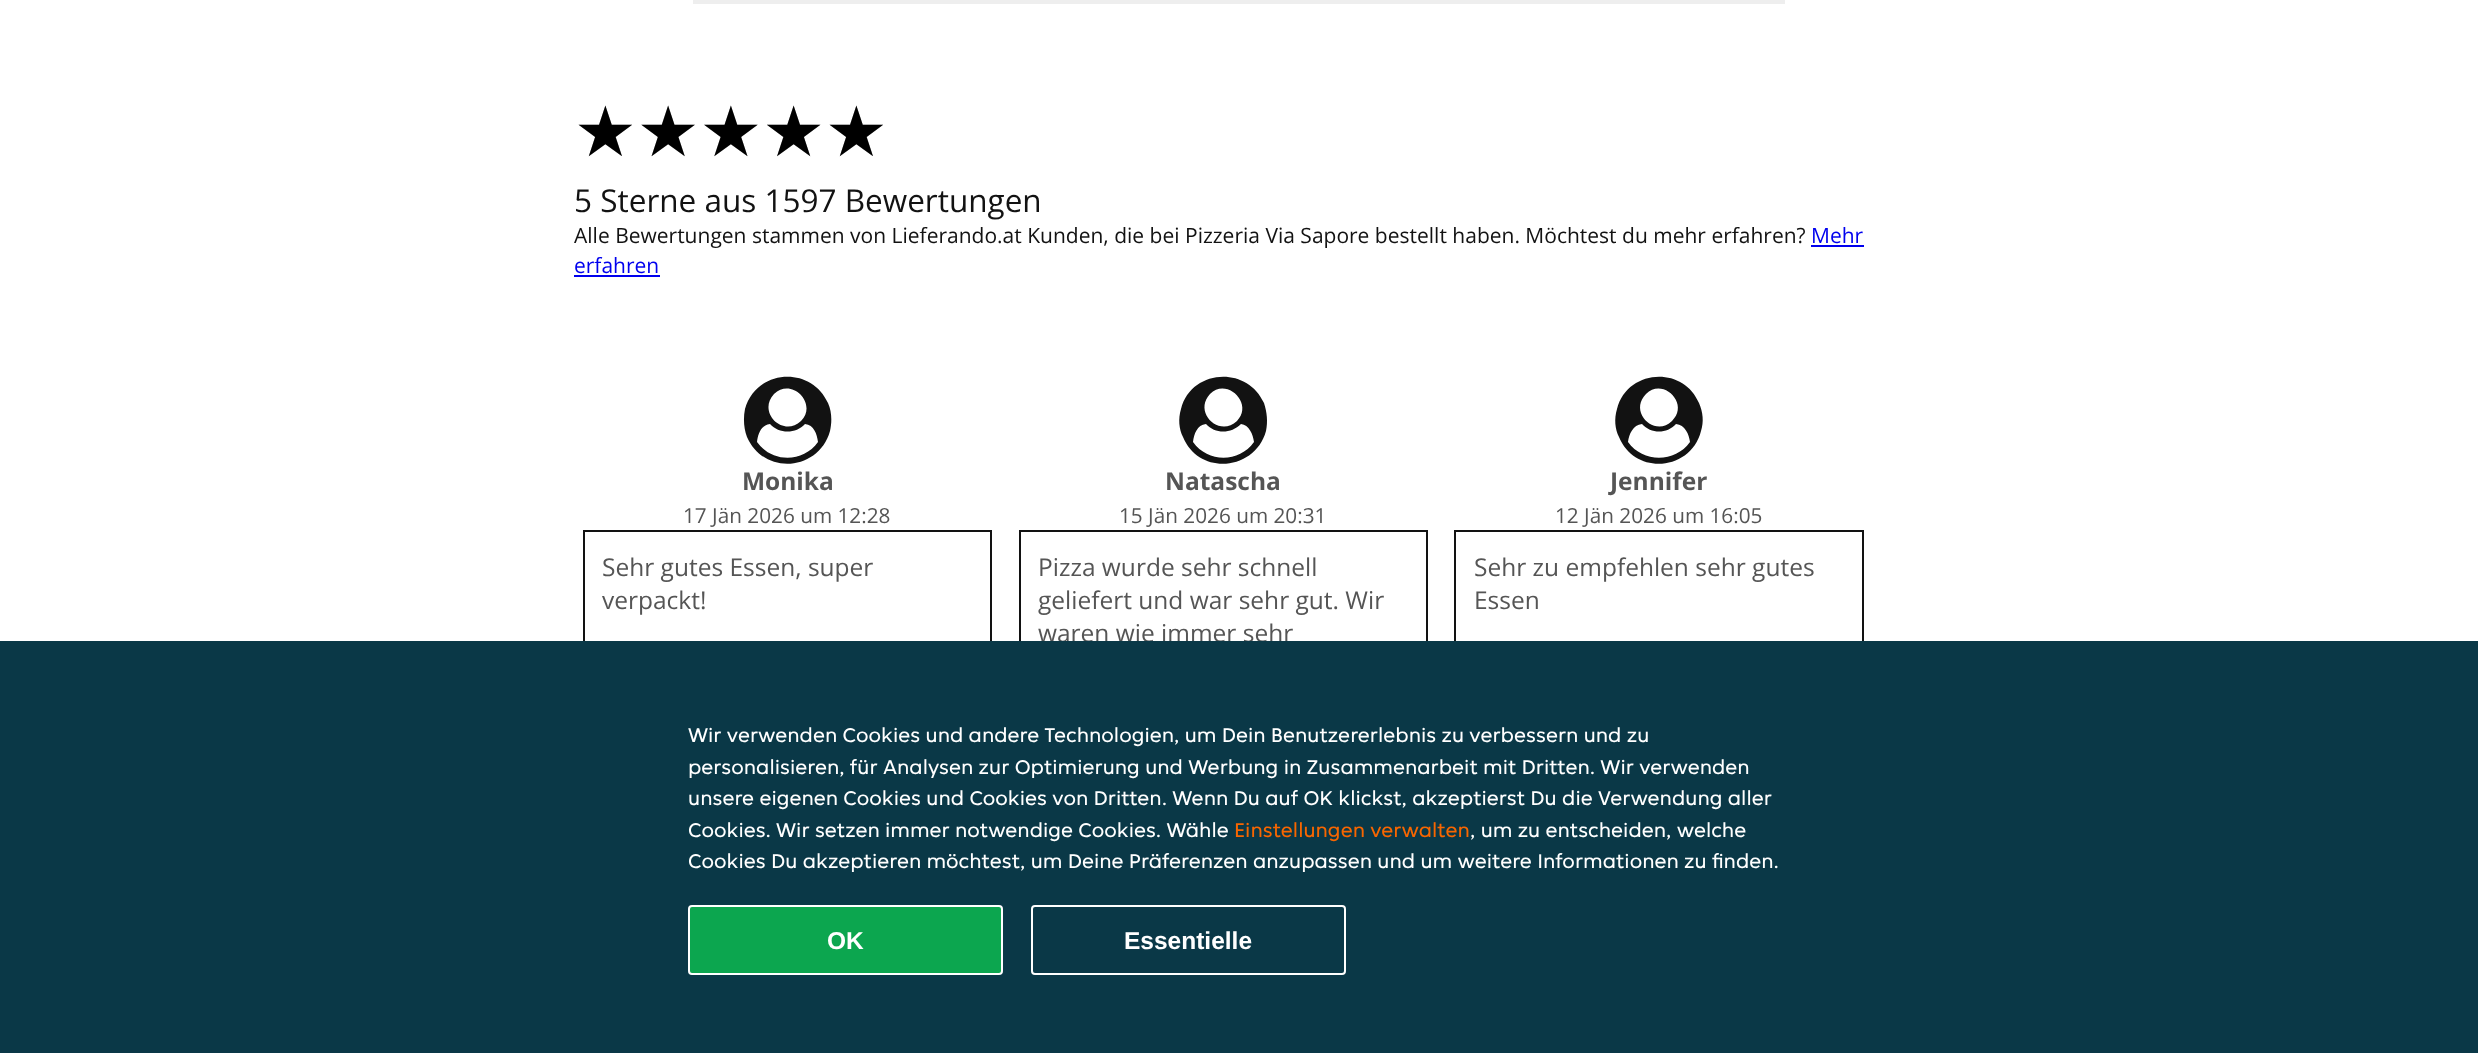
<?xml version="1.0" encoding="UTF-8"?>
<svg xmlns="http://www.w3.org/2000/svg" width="2478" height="1053">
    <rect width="100%" height="100%" fill="#FFFFFF"/>
    <rect x="693" y="0" width="1092" height="4" fill="#EEEEEE"/>
    <text x="574" y="156" font-family="DejaVu Sans" font-size="70" fill="#BBBBBB">★★★★★</text>
    <text x="574" y="156" font-family="DejaVu Sans" font-size="70" fill="#000000">★★★★★</text>
    <text x="574" y="212" font-family="Open Sans" font-size="31.5" fill="#121212">5 Sterne aus 1597 Bewertungen</text>
    <text x="574" y="243" font-family="Open Sans" font-size="21" fill="#121212">Alle Bewertungen stammen von Lieferando.at Kunden, die bei Pizzeria Via Sapore bestellt haben. Möchtest du mehr erfahren?</text>
    <text x="1811" y="243" font-family="Open Sans" font-size="21" fill="#0000EE">Mehr</text>
    <rect x="1811" y="245" width="53" height="2" fill="#0000EE"/>
    <text x="574" y="273" font-family="Open Sans" font-size="21" fill="#0000EE">erfahren</text>
    <rect x="574" y="275" width="86" height="2" fill="#0000EE"/>
    <path d="M 818 442 C 817 434 814 425 805 424 C 796 434 779 434 770 424 C 761 425 758 434 757 442 C 772 463 803 463 818 442 Z M 801 421 C 818 404 792 377 774 394 C 757 412 783 438 801 421 Z M 828 403 C 832 412 832 422 830 431 C 819 471 764 476 747 437 C 744 429 743 419 745 409 C 756 369 811 365 828 403 Z" fill="#121212"/>
    <text x="742" y="490" font-family="Open Sans" font-size="24.5" font-weight="700" fill="#555555">Monika</text>
    <text x="683" y="523" font-family="Open Sans" font-size="20.75" fill="#555555">17 Jän 2026 um 12:28</text>
    <rect x="584" y="531" width="407" height="173" fill="none" stroke="#121212" stroke-width="2"/>
    <text font-family="Open Sans" font-size="24.5" fill="#555555">
        <tspan x="602" y="576">Sehr gutes Essen, super</tspan>
        <tspan x="602" y="609">verpackt!</tspan>
    </text>
    <path d="M 1254 442 C 1253 434 1249 425 1241 424 C 1231 434 1215 434 1206 424 C 1197 425 1194 434 1193 442 C 1208 463 1239 463 1254 442 Z M 1237 421 C 1254 404 1227 377 1210 394 C 1193 412 1219 438 1237 421 Z M 1264 403 C 1267 412 1268 422 1266 431 C 1255 471 1199 476 1183 437 C 1179 429 1178 419 1181 409 C 1191 369 1247 365 1264 403 Z" fill="#121212"/>
    <text x="1165" y="490" font-family="Open Sans" font-size="24.5" font-weight="700" fill="#555555">Natascha</text>
    <text x="1119" y="523" font-family="Open Sans" font-size="20.75" fill="#555555">15 Jän 2026 um 20:31</text>
    <rect x="1020" y="531" width="407" height="173" fill="none" stroke="#121212" stroke-width="2"/>
    <text font-family="Open Sans" font-size="24.5" fill="#555555">
        <tspan x="1038" y="576">Pizza wurde sehr schnell</tspan>
        <tspan x="1038" y="609">geliefert und war sehr gut. Wir</tspan>
        <tspan x="1038" y="642">waren wie immer sehr</tspan>
    </text>
    <path d="M 1690 442 C 1689 434 1685 425 1676 424 C 1667 434 1651 434 1642 424 C 1633 425 1629 434 1628 442 C 1643 463 1675 463 1690 442 Z M 1672 421 C 1690 404 1663 377 1646 394 C 1628 412 1655 438 1672 421 Z M 1699 403 C 1703 412 1704 422 1701 431 C 1691 471 1635 476 1619 437 C 1615 429 1614 419 1617 409 C 1627 369 1683 365 1699 403 Z" fill="#121212"/>
    <text x="1610" y="490" font-family="Open Sans" font-size="24.5" font-weight="700" fill="#555555">Jennifer</text>
    <text x="1555" y="523" font-family="Open Sans" font-size="20.75" fill="#555555">12 Jän 2026 um 16:05</text>
    <rect x="1455" y="531" width="408" height="173" fill="none" stroke="#121212" stroke-width="2"/>
    <text font-family="Open Sans" font-size="24.5" fill="#555555">
        <tspan x="1474" y="576">Sehr zu empfehlen sehr gutes</tspan>
        <tspan x="1474" y="609">Essen</tspan>
    </text>
    <rect x="0" y="641" width="2478" height="412" fill="#0A3847"/>
    <text font-family="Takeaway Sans" font-size="21" fill="#FFFFFF">
        <tspan x="688" y="742">Wir verwenden Cookies und andere Technologien, um Dein Benutzererlebnis zu verbessern und zu</tspan>
        <tspan x="688" y="774">personalisieren, für Analysen zur Optimierung und Werbung in Zusammenarbeit mit Dritten. Wir verwenden</tspan>
        <tspan x="688" y="805">unsere eigenen Cookies und Cookies von Dritten. Wenn Du auf OK klickst, akzeptierst Du die Verwendung aller</tspan>
        <tspan x="688" y="837">Cookies. Wir setzen immer notwendige Cookies. Wähle</tspan>
    </text>
    <text x="1234" y="837" font-family="Takeaway Sans" font-size="21" fill="#F86600">Einstellungen verwalten</text>
    <text x="1470" y="837" font-family="Takeaway Sans" font-size="21" fill="#FFFFFF">, um zu entscheiden, welche</text>
    <text x="688" y="868" font-family="Takeaway Sans" font-size="21" fill="#FFFFFF">Cookies Du akzeptieren möchtest, um Deine Präferenzen anzupassen und um weitere Informationen zu finden.</text>
    <rect x="689" y="906" width="313" height="68" rx="3" fill="#0CA64F" stroke="#FFFFFF" stroke-width="2"/>
    <text x="827" y="949" font-family="Liberation Sans" font-size="24.5" font-weight="700" fill="#FFFFFF">OK</text>
    <rect x="1032" y="906" width="313" height="68" rx="3" fill="none" stroke="#FFFFFF" stroke-width="2"/>
    <text x="1124" y="949" font-family="Liberation Sans" font-size="24.5" font-weight="700" fill="#FFFFFF">Essentielle</text>
</svg>
